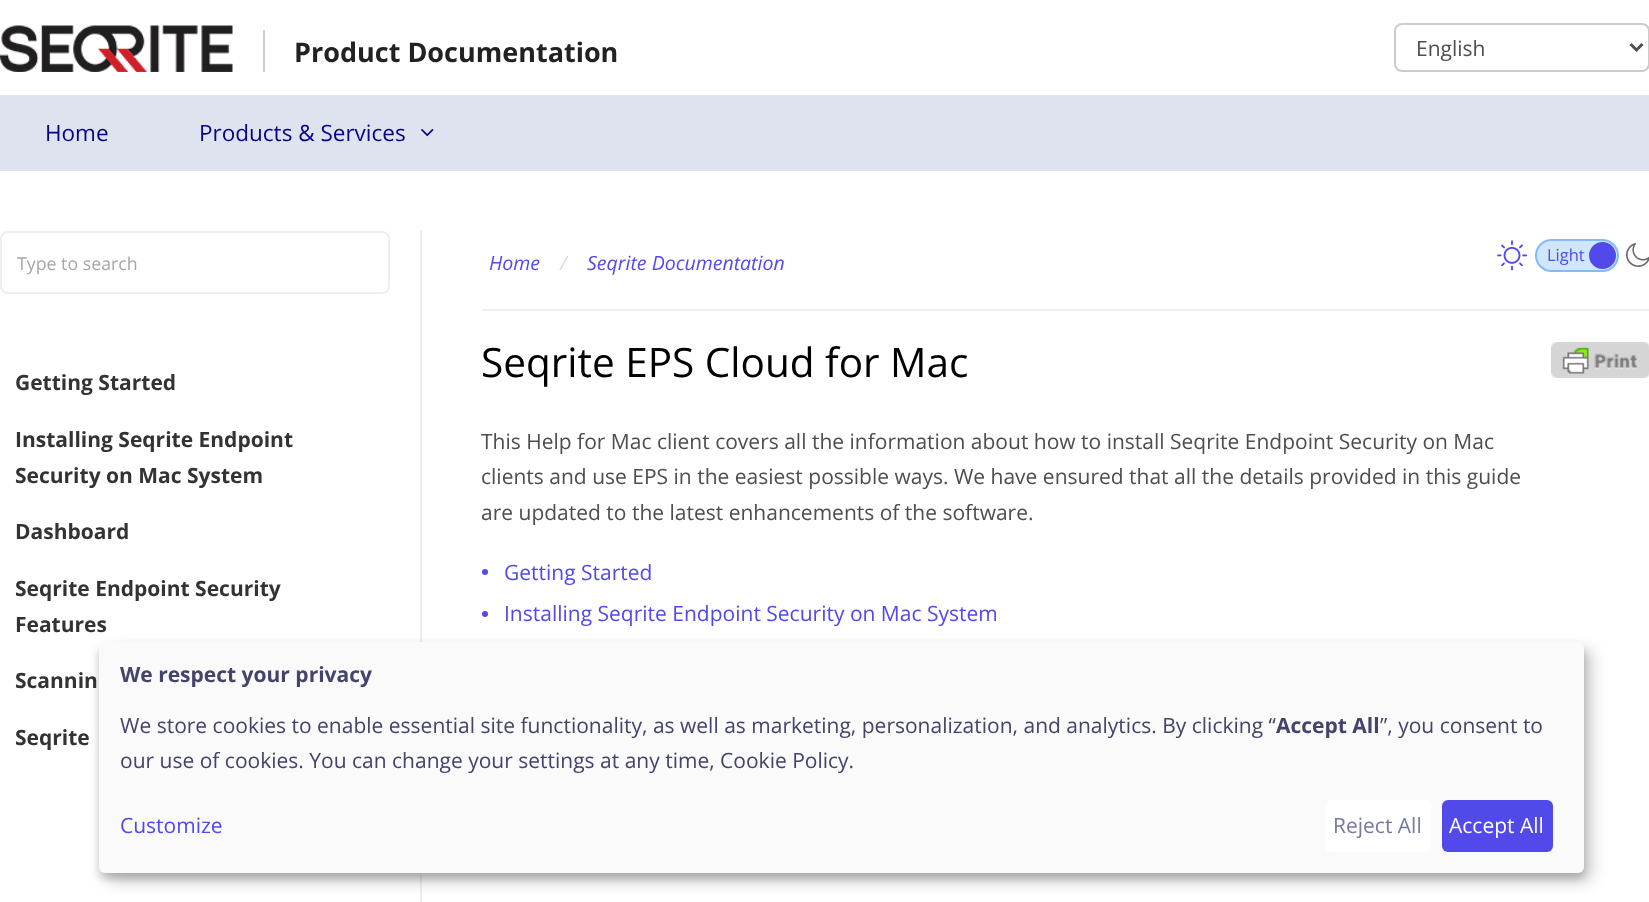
<?xml version="1.0" encoding="UTF-8"?>
<svg xmlns="http://www.w3.org/2000/svg" width="1649" height="902">
    <defs>
        <filter id="blur1" x="-50%" y="-200%" width="200%" height="500%"><feGaussianBlur stdDeviation="7.5"/></filter>
        <filter id="blur2" x="-50%" y="-200%" width="200%" height="500%"><feGaussianBlur stdDeviation="4.5"/></filter>
    </defs>
    <rect width="100%" height="100%" fill="#FFFFFF"/>
    <image x="0" y="25" width="233" height="47" href="img_01.png"/>
    <rect x="263" y="30" width="2" height="42" fill="#CCCCCC"/>
    <text x="294" y="62" font-family="Open Sans" font-size="27" font-weight="700" fill="#222222">Product Documentation</text>
    <rect x="1395" y="24" width="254" height="47" rx="7" fill="none" stroke="#CCCCCC" stroke-width="2"/>
    <path d="M 1630.5 44 L 1636.5 50 L 1642.5 44" fill="none" stroke="#4E4E4E" stroke-width="3"/>
    <text x="1416" y="56" font-family="Open Sans" font-size="21" fill="#4E4E4E">English</text>
    <rect x="0" y="95" width="1649" height="76" fill="#DFE3F0"/>
    <text x="45" y="141" font-family="Open Sans" font-size="22.5" fill="#090286">Home</text>
    <text x="199" y="141" font-family="Open Sans" font-size="22.5" fill="#090286">Products &amp; Services</text>
    <image x="421" y="129" width="13" height="8" href="img_02.png"/>
    <rect x="420" y="231" width="2" height="671" fill="#EEEEEE"/>
    <rect x="1" y="232" width="388" height="61" rx="7" fill="none" stroke="#EEEEEE" stroke-width="2"/>
    <text x="17" y="270" font-family="Open Sans" font-size="17.75" fill="#A7A7A7">Type to search</text>
    <text x="15" y="390" font-family="Open Sans" font-size="21" font-weight="700" fill="#333333">Getting Started</text>
    <text font-family="Open Sans" font-size="21" font-weight="700" fill="#333333">
        <tspan x="15" y="447">Installing Seqrite Endpoint</tspan>
        <tspan x="15" y="483">Security on Mac System</tspan>
    </text>
    <text x="15" y="539" font-family="Open Sans" font-size="21" font-weight="700" fill="#333333">Dashboard</text>
    <text font-family="Open Sans" font-size="21" font-weight="700" fill="#333333">
        <tspan x="15" y="596">Seqrite Endpoint Security</tspan>
        <tspan x="15" y="632">Features</tspan>
    </text>
    <text x="15" y="688" font-family="Open Sans" font-size="21" font-weight="700" fill="#333333">Scannin</text>
    <text x="15" y="745" font-family="Open Sans" font-size="21" font-weight="700" fill="#333333">Seqrite</text>
    <rect x="482" y="309" width="1167" height="2" fill="#EEEEEE"/>
    <text x="489" y="270" font-family="Open Sans" font-size="19.5" font-style="italic" fill="#5249EB">Home</text>
    <text x="560" y="270" font-family="Open Sans" font-size="19.5" font-style="italic" fill="#DADADB">/</text>
    <text x="587" y="270" font-family="Open Sans" font-size="19.5" font-style="italic" fill="#5249EB">Seqrite Documentation</text>
    <text x="481" y="377" font-family="Open Sans" font-size="40.5" fill="#000000">Seqrite EPS Cloud for Mac</text>
    <image x="1551" y="342" width="98" height="36" href="img_03.png"/>
    <text font-family="Open Sans" font-size="21" fill="#4E4E4E">
        <tspan x="481" y="449">This Help for Mac client covers all the information about how to install Seqrite Endpoint Security on Mac</tspan>
        <tspan x="481" y="484">clients and use EPS in the easiest possible ways. We have ensured that all the details provided in this guide</tspan>
        <tspan x="481" y="520">are updated to the latest enhancements of the software.</tspan>
    </text>
    <circle cx="485" cy="572" r="3" fill="#5249EB"/>
    <text x="504" y="580" font-family="Open Sans" font-size="21" fill="#5249EB">Getting Started</text>
    <circle cx="485" cy="614" r="3" fill="#5249EB"/>
    <text x="504" y="621" font-family="Open Sans" font-size="21" fill="#5249EB">Installing Seqrite Endpoint Security on Mac System</text>
    <image x="1497" y="240" width="31" height="31" href="img_04.png"/>
    <rect x="1536" y="240" width="82" height="31" rx="15.5" fill="#D0E6FF" stroke="#81BCFC" stroke-width="2"/>
    <text x="1547" y="261" font-family="Open Sans" font-size="16.5" fill="#5249EB">Light</text>
    <circle cx="1602.5" cy="255.5" r="13.5" fill="#5249EB"/>
    <image x="1626" y="243" width="23" height="24" href="img_05.png"/>
    <rect x="107" y="650" width="1485" height="231" rx="6" fill="#000000" fill-opacity="0.19" filter="url(#blur1)"/>
    <rect x="99" y="648" width="1485" height="231" rx="6" fill="#000000" fill-opacity="0.2" filter="url(#blur2)"/>
    <rect x="99" y="642" width="1485" height="231" rx="6" fill="#FAFAFA"/>
    <text x="120" y="682" font-family="Open Sans" font-size="21" font-weight="700" fill="#43436C">We respect your privacy</text>
    <text x="120" y="733" font-family="Open Sans" font-size="21" fill="#43436C">We store cookies to enable essential site functionality, as well as marketing, personalization, and analytics. By clicking “</text>
    <text x="1276" y="733" font-family="Open Sans" font-size="21" font-weight="700" fill="#43436C">Accept All</text>
    <text x="1380" y="733" font-family="Open Sans" font-size="21" fill="#43436C">”, you consent to</text>
    <text x="120" y="768" font-family="Open Sans" font-size="21" fill="#43436C">our use of cookies. You can change your settings at any time, Cookie Policy.</text>
    <text x="120" y="833" font-family="Open Sans" font-size="21" fill="#5249EB">Customize</text>
    <rect x="1325" y="800" width="106" height="52" rx="6" fill="#FFFFFF"/>
    <text x="1333" y="833" font-family="Open Sans" font-size="21" fill="#7879A1">Reject All</text>
    <rect x="1442" y="800" width="111" height="52" rx="6" fill="#5249EB"/>
    <text x="1449" y="833" font-family="Open Sans" font-size="21" fill="#FFFFFF">Accept All</text>
</svg>
